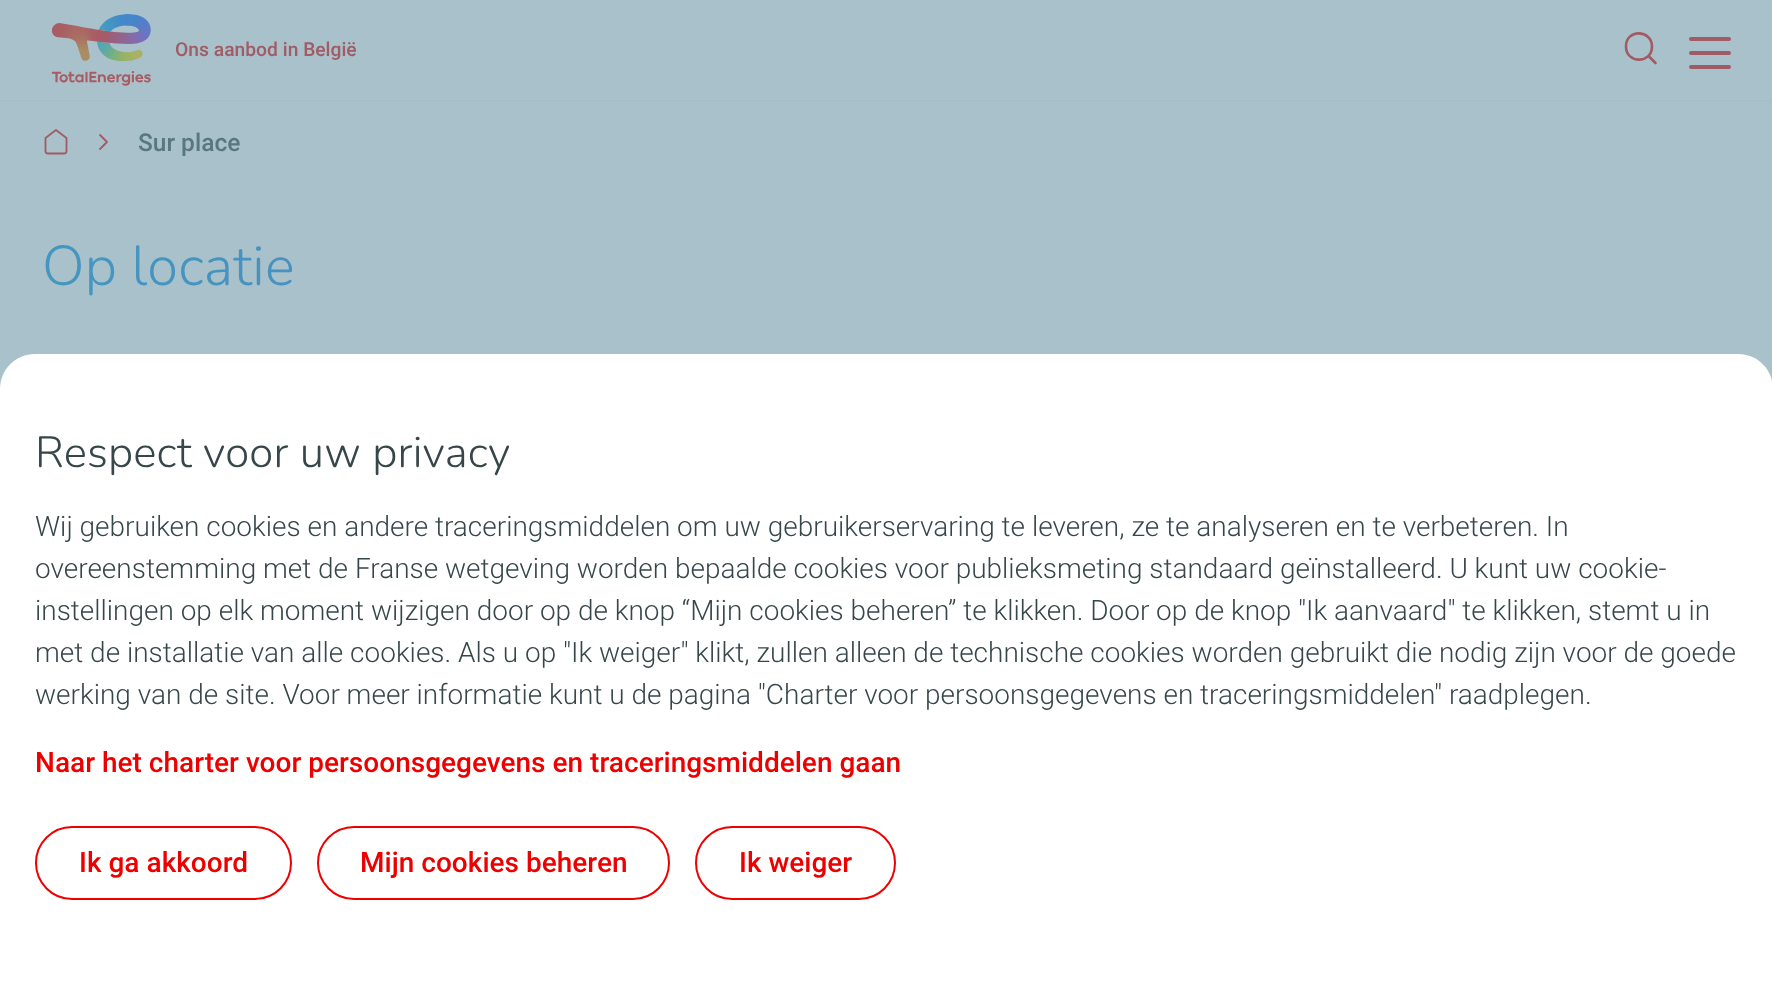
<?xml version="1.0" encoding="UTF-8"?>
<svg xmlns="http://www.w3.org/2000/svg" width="1772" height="999">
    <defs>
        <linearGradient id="g1" gradientUnits="userSpaceOnUse" x1="446" y1="-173" x2="1327" y2="707"><stop offset="0" stop-color="#4398BF"/><stop offset="1" stop-color="#5F6FCA"/></linearGradient>
    </defs>
    <rect width="100%" height="100%" fill="#A9C1CA"/>
    <rect x="0" y="100" width="1772" height="2" fill="#A5BFC9"/>
    <image x="51" y="14" width="100" height="72" href="img_01.png"/>
    <text x="175" y="56" font-family="Roboto" font-size="19.25" font-weight="500" fill="#A05B64">Ons aanbod in België</text>
    <path d="M 1655.5 63 L 1648.5 56 M 1652 46.5 C 1652 64 1626 64 1626 46.5 C 1625.5 29 1652 29 1652 46.5 Z" fill="none" stroke="#A05B64" stroke-width="2.6" stroke-linecap="round" stroke-linejoin="round"/>
    <rect x="1689" y="37" width="42" height="4" rx="2" fill="#A05B64"/>
    <rect x="1689" y="51" width="42" height="4" rx="2" fill="#A05B64"/>
    <rect x="1689" y="65" width="42" height="4" rx="2" fill="#A05B64"/>
    <path d="M 45.5 138 L 56 130 L 66.5 138 V 151 C 66.5 152.5 65.5 153.5 64 153.5 H 48 C 46.5 153.5 45.5 152.5 45.5 151 Z" fill="none" stroke="#A05B64" stroke-width="1.8" stroke-linecap="round" stroke-linejoin="round"/>
    <path d="M 100 149 L 107 142 L 100 135" fill="none" stroke="#A05B64" stroke-width="1.8" stroke-linecap="round" stroke-linejoin="round"/>
    <text x="138" y="151" font-family="Roboto" font-size="24.5" font-weight="500" fill="#597781">Sur place</text>
    <text x="42" y="285" font-family="Nunito" font-size="56" font-weight="300" letter-spacing="0.2" fill="url(#g1)">Op locatie</text>
    <path d="M 35 354 H 1738 C 1757.5 354 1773 369.5 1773 389 V 999 H 0 V 389 C 0 369.5 15.5 354 35 354 Z" fill="#FFFFFF"/>
    <text x="35" y="467" font-family="Nunito" font-size="43.75" font-weight="300" letter-spacing="0.2" fill="#374649">Respect voor uw privacy</text>
    <text font-family="Roboto" font-size="28" font-weight="300" fill="#374649">
        <tspan x="35" y="536">Wij gebruiken cookies en andere traceringsmiddelen om uw gebruikerservaring te leveren, ze te analyseren en te verbeteren. In</tspan>
        <tspan x="35" y="578">overeenstemming met de Franse wetgeving worden bepaalde cookies voor publieksmeting standaard geïnstalleerd. U kunt uw cookie-</tspan>
        <tspan x="35" y="620">instellingen op elk moment wijzigen door op de knop “Mijn cookies beheren” te klikken. Door op de knop "Ik aanvaard" te klikken, stemt u in</tspan>
        <tspan x="35" y="662">met de installatie van alle cookies. Als u op "Ik weiger" klikt, zullen alleen de technische cookies worden gebruikt die nodig zijn voor de goede</tspan>
        <tspan x="35" y="704">werking van de site. Voor meer informatie kunt u de pagina "Charter voor persoonsgegevens en traceringsmiddelen" raadplegen.</tspan>
    </text>
    <text x="35" y="772" font-family="Roboto" font-size="28" font-weight="500" fill="#ED0000">Naar het charter voor persoonsgegevens en traceringsmiddelen gaan</text>
    <rect x="36" y="827" width="255" height="72" rx="36" fill="none" stroke="#ED0000" stroke-width="2"/>
    <text x="79" y="872" font-family="Roboto" font-size="28" font-weight="500" fill="#ED0000">Ik ga akkoord</text>
    <rect x="318" y="827" width="351" height="72" rx="36" fill="none" stroke="#ED0000" stroke-width="2"/>
    <text x="360" y="872" font-family="Roboto" font-size="28" font-weight="500" fill="#ED0000">Mijn cookies beheren</text>
    <rect x="696" y="827" width="199" height="72" rx="36" fill="none" stroke="#ED0000" stroke-width="2"/>
    <text x="739" y="872" font-family="Roboto" font-size="28" font-weight="500" fill="#ED0000">Ik weiger</text>
</svg>
